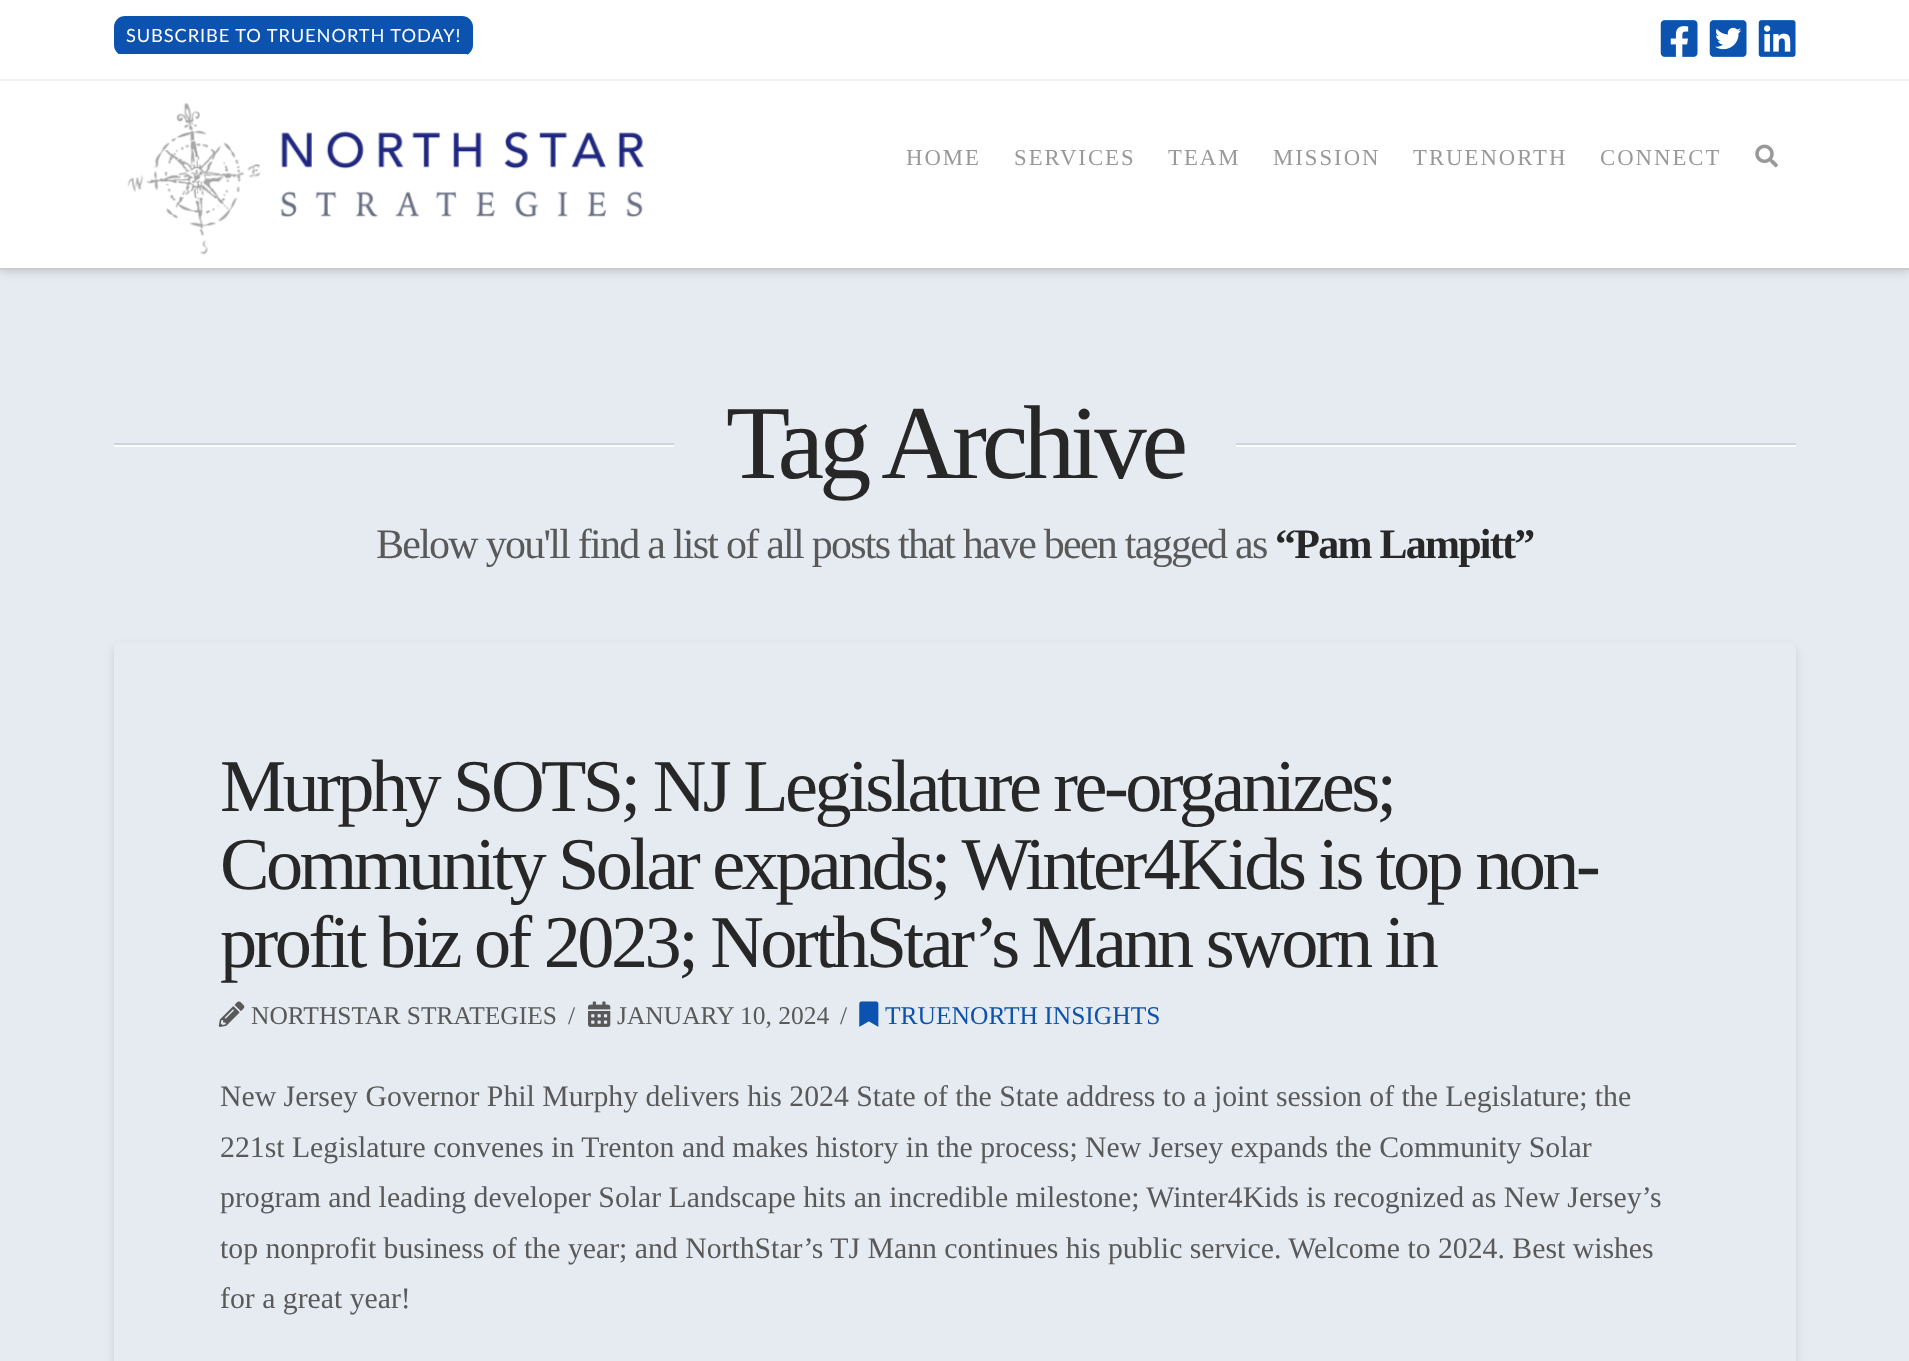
<?xml version="1.0" encoding="UTF-8"?>
<svg xmlns="http://www.w3.org/2000/svg" width="1909" height="1361">
    <defs>
        <filter id="blur1" x="-50%" y="-200%" width="200%" height="500%"><feGaussianBlur stdDeviation="4.5"/></filter>
        <clipPath id="clip1"><path d="M 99 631 H 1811 V 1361 H 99 Z M 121 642 H 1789 C 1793 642 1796 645 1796 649 V 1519 C 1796 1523 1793 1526 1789 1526 H 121 C 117 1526 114 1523 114 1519 V 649 C 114 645 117 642 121 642 Z" clip-rule="evenodd"/></clipPath>
    </defs>
    <rect width="100%" height="100%" fill="#E6EBF2"/>
    <rect x="0" y="84" width="1909" height="189" fill="#000000" fill-opacity="0.13" filter="url(#blur1)"/>
    <rect x="0" y="0" width="1909" height="79" fill="#FFFFFF"/>
    <rect x="0" y="79" width="1909" height="2" fill="#F2F2F2"/>
    <rect x="114" y="16" width="359" height="40" rx="11" fill="#0C53AF"/>
    <rect x="119" y="54" width="348" height="2" fill="#FFFFFF"/>
    <text x="126" y="42" font-family="Lato" font-size="18.25" letter-spacing="0.9" fill="#FFFFFF">SUBSCRIBE TO TRUENORTH TODAY!</text>
    <image x="1660" y="20" width="38" height="37" href="img_01.png"/>
    <image x="1709" y="20" width="38" height="37" href="img_02.png"/>
    <image x="1758" y="20" width="38" height="37" href="img_03.png"/>
    <rect x="0" y="81" width="1909" height="187" fill="#FFFFFF"/>
    <rect x="0" y="268" width="1909" height="2" fill="#CCCCCC"/>
    <image x="127" y="103" width="517" height="152" href="img_04.png"/>
    <text x="906" y="165" font-family="Liberation Serif" font-size="22.75" letter-spacing="2" fill="#999999">HOME</text>
    <text x="1014" y="165" font-family="Liberation Serif" font-size="22.75" letter-spacing="2" fill="#999999">SERVICES</text>
    <text x="1168" y="165" font-family="Liberation Serif" font-size="22.75" letter-spacing="2" fill="#999999">TEAM</text>
    <text x="1273" y="165" font-family="Liberation Serif" font-size="22.75" letter-spacing="2" fill="#999999">MISSION</text>
    <text x="1413" y="165" font-family="Liberation Serif" font-size="22.75" letter-spacing="2" fill="#999999">TRUENORTH</text>
    <text x="1600" y="165" font-family="Liberation Serif" font-size="22.75" letter-spacing="2" fill="#999999">CONNECT</text>
    <image x="1755" y="144" width="23" height="24" href="img_05.png"/>
    <rect x="114" y="445" width="560" height="2" fill="#FAFBFC"/>
    <rect x="114" y="443" width="560" height="2" fill="#CFD4DA"/>
    <text x="726" y="478" font-family="Liberation Serif" font-size="105" letter-spacing="-5.25" fill="#272727">Tag Archive</text>
    <rect x="1236" y="445" width="560" height="2" fill="#FAFBFC"/>
    <rect x="1236" y="443" width="560" height="2" fill="#CFD4DA"/>
    <text x="376" y="558" font-family="Liberation Serif" font-size="42" letter-spacing="-1.75" fill="#595959">Below you'll find a list of all posts that have been tagged as</text>
    <text x="1275" y="558" font-family="Liberation Serif" font-size="42" font-weight="700" letter-spacing="-1.75" fill="#272727">“Pam Lampitt”</text>
    <g clip-path="url(#clip1)">
        <rect x="114" y="646" width="1682" height="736" rx="7" fill="#000000" fill-opacity="0.13" filter="url(#blur1)"/>
    </g>
    <text font-family="Liberation Serif" font-size="74.3" letter-spacing="-3.55" fill="#272727">
        <tspan x="220" y="811">Murphy SOTS; NJ Legislature re-organizes;</tspan>
        <tspan x="220" y="889">Community Solar expands; Winter4Kids is top non-</tspan>
        <tspan x="220" y="967">profit biz of 2023; NorthStar’s Mann sworn in</tspan>
    </text>
    <image x="218" y="1001" width="27" height="26" href="img_06.png"/>
    <text x="251" y="1024" font-family="Liberation Serif" font-size="25.5" fill="#595959">NORTHSTAR STRATEGIES</text>
    <text x="568" y="1024" font-family="Liberation Serif" font-size="25.5" fill="#595959">/</text>
    <image x="588" y="1001" width="23" height="26" href="img_07.png"/>
    <text x="617" y="1024" font-family="Liberation Serif" font-size="25.5" fill="#595959">JANUARY 10, 2024</text>
    <text x="840" y="1024" font-family="Liberation Serif" font-size="25.5" fill="#595959">/</text>
    <image x="859" y="1001" width="20" height="26" href="img_08.png"/>
    <text x="885" y="1024" font-family="Liberation Serif" font-size="25.5" fill="#0C53AF">TRUENORTH INSIGHTS</text>
    <text font-family="Liberation Serif" font-size="29.75" fill="#595959">
        <tspan x="220" y="1106">New Jersey Governor Phil Murphy delivers his 2024 State of the State address to a joint session of the Legislature; the</tspan>
        <tspan x="220" y="1157">221st Legislature convenes in Trenton and makes history in the process; New Jersey expands the Community Solar</tspan>
        <tspan x="220" y="1207">program and leading developer Solar Landscape hits an incredible milestone; Winter4Kids is recognized as New Jersey’s</tspan>
        <tspan x="220" y="1258">top nonprofit business of the year; and NorthStar’s TJ Mann continues his public service. Welcome to 2024. Best wishes</tspan>
        <tspan x="220" y="1308">for a great year!</tspan>
    </text>
</svg>
